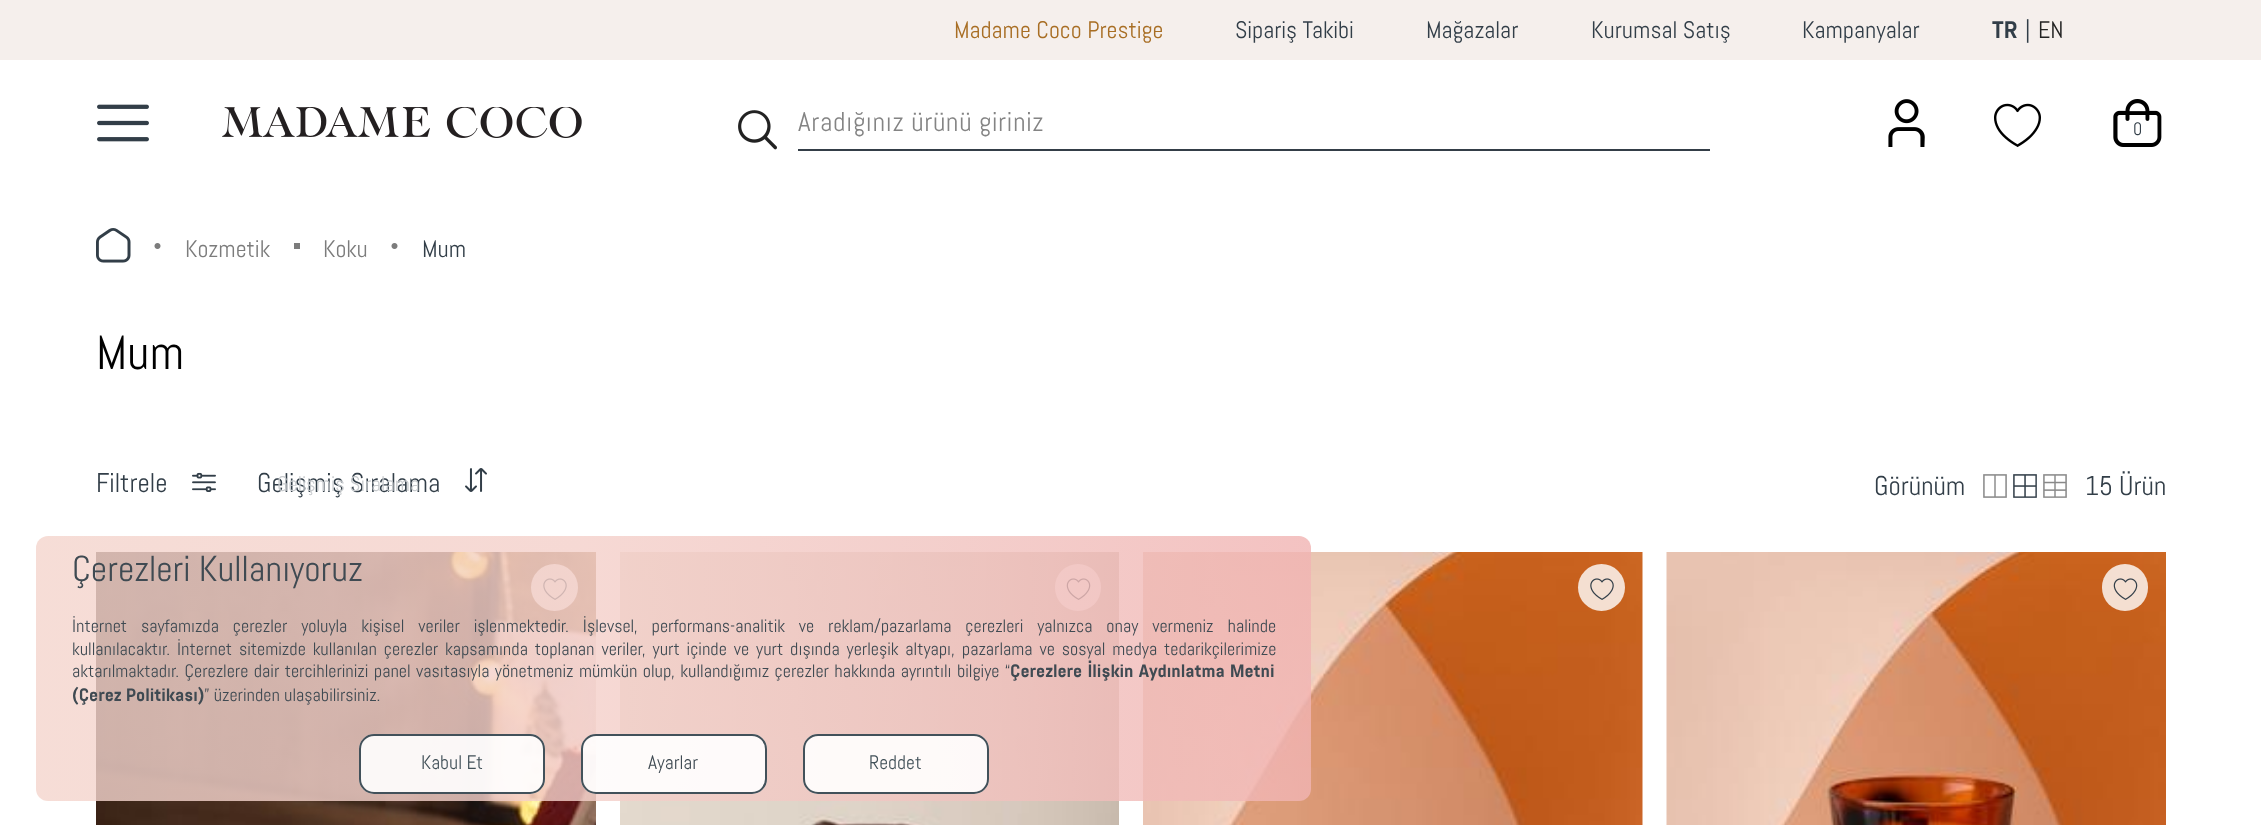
<?xml version="1.0" encoding="UTF-8"?>
<svg xmlns="http://www.w3.org/2000/svg" width="2261" height="825">
    <defs>
        <linearGradient id="g1" gradientUnits="userSpaceOnUse" x1="36" y1="668" x2="1311" y2="668"><stop offset="0" stop-color="#F4D5CD" stop-opacity="0.81"/><stop offset="0.43" stop-color="#F4D0CA" stop-opacity="0.81"/><stop offset="0.7" stop-color="#F1C4C0" stop-opacity="0.81"/><stop offset="1" stop-color="#F1B4B3" stop-opacity="0.81"/></linearGradient>
    </defs>
    <rect width="100%" height="100%" fill="#FFFFFF"/>
    <rect x="0" y="0" width="2261" height="60" fill="#F5EFEC"/>
    <text x="954" y="38" font-family="Abel" font-size="24" fill="#A86E24">Madame Coco Prestige</text>
    <text x="1235" y="38" font-family="Abel" font-size="24" fill="#323E48">Sipariş Takibi</text>
    <text x="1426" y="38" font-family="Abel" font-size="24" fill="#323E48">Mağazalar</text>
    <text x="1591" y="38" font-family="Abel" font-size="24" fill="#323E48">Kurumsal Satış</text>
    <text x="1802" y="38" font-family="Abel" font-size="24" fill="#323E48">Kampanyalar</text>
    <text x="1992" y="38" font-family="Abel" font-size="24" font-weight="700" fill="#323E48">TR</text>
    <text x="2025" y="38" font-family="Abel" font-size="24" fill="#323E48">|</text>
    <text x="2038" y="38" font-family="Abel" font-size="24" fill="#222222">EN</text>
    <image x="97" y="104" width="52" height="38" href="img_01.png"/>
    <image x="222" y="107" width="360" height="31" href="img_02.png"/>
    <image x="738" y="110" width="39" height="40" href="img_03.png"/>
    <rect x="798" y="149" width="912" height="2" fill="#343E47"/>
    <text x="798" y="131" font-family="Abel" font-size="27" letter-spacing="0.7" fill="#848484">Aradığınız ürünü giriniz</text>
    <image x="1888" y="99" width="37" height="48" href="img_04.png"/>
    <image x="1994" y="103" width="47" height="44" href="img_05.png"/>
    <text x="2133" y="135" font-family="Abel" font-size="18" fill="#323E48">0</text>
    <image x="2113" y="99" width="49" height="48" href="img_06.png"/>
    <image x="96" y="228" width="35" height="35" href="img_07.png"/>
    <image x="154" y="243" width="7" height="6" href="img_08.png"/>
    <text x="185" y="257" font-family="Abel" font-size="24" fill="#7C7C7C">Kozmetik</text>
    <rect x="294" y="243" width="6" height="6" fill="#7C7C7C"/>
    <text x="323" y="257" font-family="Abel" font-size="24" fill="#7C7C7C">Koku</text>
    <image x="391" y="243" width="7" height="6" href="img_08.png"/>
    <text x="422" y="257" font-family="Abel" font-size="24" fill="#323E48">Mum</text>
    <text x="96" y="369" font-family="Abel" font-size="48" fill="#000000">Mum</text>
    <text x="96" y="492" font-family="Abel" font-size="27" fill="#323E48">Filtrele</text>
    <image x="192" y="472" width="24" height="20" href="img_09.png"/>
    <text x="257" y="492" font-family="Abel" font-size="27" fill="#323E48">Gelişmiş Sıralama</text>
    <image x="465" y="468" width="22" height="24" href="img_10.png"/>
    <text x="277" y="491" font-family="Abel" font-size="21" fill="#C8CBCE">Gelişmiş Sıralama</text>
    <text x="1874" y="495" font-family="Abel" font-size="27" fill="#323E48">Görünüm</text>
    <image x="1983" y="474" width="24" height="24" href="img_11.png"/>
    <image x="2013" y="474" width="24" height="24" href="img_12.png"/>
    <image x="2043" y="474" width="24" height="24" href="img_13.png"/>
    <text x="2085" y="495" font-family="Abel" font-size="27" fill="#323E48">15 Ürün</text>
    <image x="96" y="552" width="500" height="273" href="img_14.png"/>
    <circle cx="554.5" cy="587.5" r="23.5" fill="#FFFFFF" fill-opacity="0.8"/>
    <image x="543" y="578" width="24" height="22" href="img_15.png"/>
    <image x="620" y="552" width="499" height="273" href="img_16.png"/>
    <rect x="1055" y="564" width="46" height="47" rx="23" fill="#FFFFFF" fill-opacity="0.8"/>
    <image x="1066" y="578" width="25" height="22" href="img_17.png"/>
    <image x="1143" y="552" width="500" height="273" href="img_18.png"/>
    <circle cx="1601.5" cy="587.5" r="23.5" fill="#FFFFFF" fill-opacity="0.8"/>
    <image x="1590" y="578" width="24" height="22" href="img_19.png"/>
    <image x="1666" y="552" width="500" height="273" href="img_20.png"/>
    <rect x="2102" y="564" width="46" height="47" rx="23" fill="#FFFFFF" fill-opacity="0.8"/>
    <image x="2113" y="578" width="25" height="22" href="img_21.png"/>
    <rect x="36" y="536" width="1275" height="265" rx="12" fill="url(#g1)"/>
    <text x="72" y="581" font-family="Abel" font-size="36" fill="#3F4A52">Çerezleri Kullanıyoruz</text>
    <text font-family="Abel" font-size="18" fill="#3F4A52">
        <tspan x="72" y="632" word-spacing="9.75">İnternet sayfamızda çerezler yoluyla kişisel veriler işlenmektedir. İşlevsel, performans-analitik ve reklam/pazarlama çerezleri yalnızca onay vermeniz halinde</tspan>
        <tspan x="72" y="655" word-spacing="2.75">kullanılacaktır. İnternet sitemizde kullanılan çerezler kapsamında toplanan veriler, yurt içinde ve yurt dışında yerleşik altyapı, pazarlama ve sosyal medya tedarikçilerimize</tspan>
        <tspan x="72" y="677" word-spacing="1.25">aktarılmaktadır. Çerezlere dair tercihlerinizi panel vasıtasıyla yönetmeniz mümkün olup, kullandığımız çerezler hakkında ayrıntılı bilgiye “</tspan>
    </text>
    <text x="1010" y="677" word-spacing="1" font-family="Abel" font-size="18" font-weight="700" fill="#3F4A52">Çerezlere İlişkin Aydınlatma Metni</text>
    <text x="72" y="701" font-family="Abel" font-size="18" font-weight="700" fill="#3F4A52">(Çerez Politikası)</text>
    <text x="204" y="701" font-family="Abel" font-size="18" fill="#3F4A52">” üzerinden ulaşabilirsiniz.</text>
    <rect x="359" y="734" width="186" height="60" rx="15" fill="#FFFFFF" fill-opacity="0.9"/>
    <rect x="360" y="735" width="184" height="58" rx="14" fill="none" stroke="#2E3E48" stroke-opacity="0.9" stroke-width="2"/>
    <text x="421" y="769" font-family="Abel" font-size="19.5" fill="#425159">Kabul Et</text>
    <rect x="581" y="734" width="186" height="60" rx="15" fill="#FFFFFF" fill-opacity="0.9"/>
    <rect x="582" y="735" width="184" height="58" rx="14" fill="none" stroke="#2E3E48" stroke-opacity="0.9" stroke-width="2"/>
    <text x="648" y="769" font-family="Abel" font-size="19.5" fill="#3F4A52">Ayarlar</text>
    <rect x="803" y="734" width="186" height="60" rx="15" fill="#FFFFFF" fill-opacity="0.9"/>
    <rect x="804" y="735" width="184" height="58" rx="14" fill="none" stroke="#2E3E48" stroke-opacity="0.9" stroke-width="2"/>
    <text x="869" y="769" font-family="Abel" font-size="19.5" fill="#425159">Reddet</text>
</svg>
